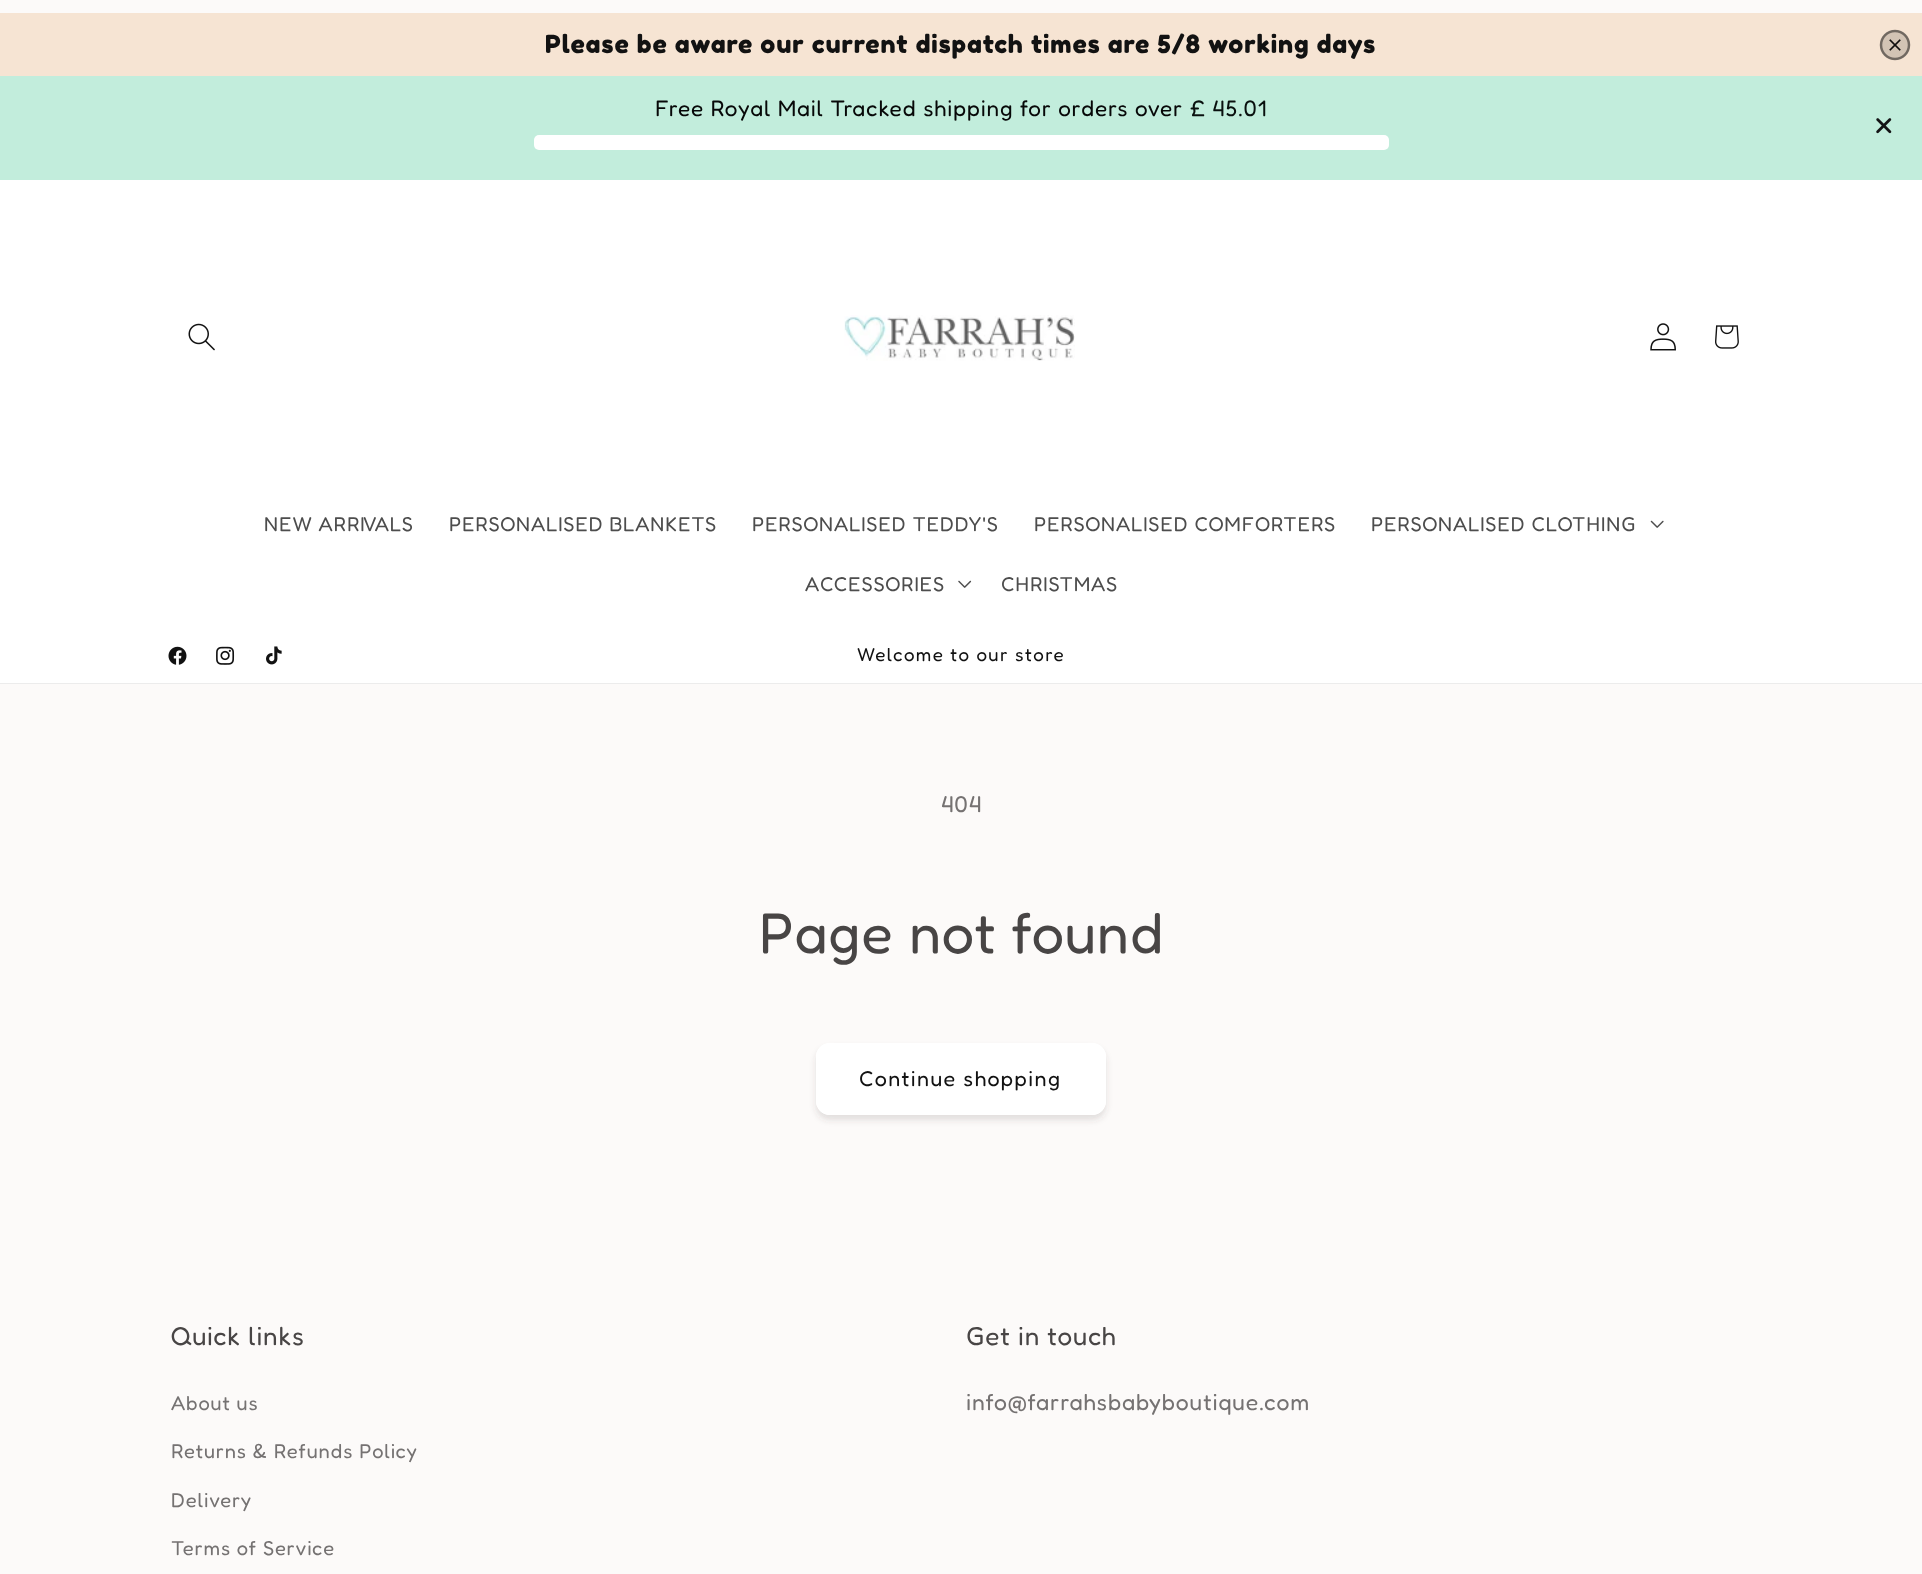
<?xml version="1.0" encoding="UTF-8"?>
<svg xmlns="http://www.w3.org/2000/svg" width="1922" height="1574">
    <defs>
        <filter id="blur1" x="-50%" y="-200%" width="200%" height="500%"><feGaussianBlur stdDeviation="3"/></filter>
    </defs>
    <rect width="100%" height="100%" fill="#FCFAF9"/>
    <rect x="0" y="13" width="1922" height="63" fill="#F6E4D3"/>
    <text x="545" y="53" font-family="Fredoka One" font-size="25" letter-spacing="0.85" fill="#121212">Please be aware our current dispatch times are 5/8 working days</text>
    <image x="1879" y="29" width="32" height="32" href="img_01.png"/>
    <rect x="0" y="76" width="1922" height="104" fill="#C2EDDC"/>
    <text x="655" y="116" font-family="Fredoka" font-size="22.5" letter-spacing="0.85" fill="#070808">Free Royal Mail Tracked shipping for orders over</text>
    <text x="1190" y="116" font-family="Fredoka" font-size="22.5" letter-spacing="0.85" fill="#09100E">£ 45.01</text>
    <image x="1876" y="118" width="16" height="16" href="img_02.png"/>
    <rect x="534" y="135" width="855" height="15" rx="5" fill="#FFFFFF"/>
    <rect x="0" y="180" width="1922" height="503" fill="#FFFFFF"/>
    <image x="188" y="323" width="27" height="28" href="img_03.png"/>
    <image x="844" y="315" width="231" height="46" href="img_04.png"/>
    <image x="1650" y="323" width="26" height="28" href="img_05.png"/>
    <image x="1715" y="325" width="24" height="24" href="img_06.png"/>
    <text x="264" y="531" font-family="Fredoka" font-size="20.1" letter-spacing="0.85" fill="#4D4D4D">NEW ARRIVALS</text>
    <text x="449" y="531" font-family="Fredoka" font-size="20.1" letter-spacing="0.85" fill="#4D4D4D">PERSONALISED BLANKETS</text>
    <text x="752" y="531" font-family="Fredoka" font-size="20.1" letter-spacing="0.85" fill="#4D4D4D">PERSONALISED TEDDY'S</text>
    <text x="1034" y="531" font-family="Fredoka" font-size="20.1" letter-spacing="0.85" fill="#4D4D4D">PERSONALISED COMFORTERS</text>
    <text x="1371" y="531" font-family="Fredoka" font-size="20.1" letter-spacing="0.85" fill="#4D4D4D">PERSONALISED CLOTHING</text>
    <image x="1650" y="520" width="14" height="8" href="img_07.png"/>
    <text x="805" y="591" font-family="Fredoka" font-size="20.1" letter-spacing="0.85" fill="#4D4D4D">ACCESSORIES</text>
    <image x="958" y="580" width="14" height="8" href="img_08.png"/>
    <text x="1001" y="591" font-family="Fredoka" font-size="20.1" letter-spacing="0.85" fill="#4D4D4D">CHRISTMAS</text>
    <rect x="0" y="683" width="1922" height="1" fill="#ECECEC"/>
    <image x="168" y="646" width="19" height="19" href="img_09.png"/>
    <image x="216" y="646" width="19" height="19" href="img_10.png"/>
    <image x="266" y="646" width="16" height="19" href="img_11.png"/>
    <text x="857" y="661" font-family="Fredoka" font-size="18.75" letter-spacing="1.4" fill="#121212">Welcome to our store</text>
    <text x="941" y="812" font-family="Fredoka" font-size="23" letter-spacing="0.85" fill="#757272">404</text>
    <text x="759" y="953" font-family="Fredoka" font-size="57.5" letter-spacing="0.85" fill="#484545">Page not found</text>
    <rect x="816" y="1048" width="290" height="72" rx="14" fill="#484545" fill-opacity="0.15" filter="url(#blur1)"/>
    <rect x="816" y="1043" width="290" height="72" rx="14" fill="#FFFFFF"/>
    <rect x="818" y="1045" width="286" height="68" rx="12" fill="none" stroke="#FFFFFF" stroke-width="4"/>
    <text x="859" y="1086" font-family="Fredoka" font-size="21.5" letter-spacing="1.4" fill="#121212">Continue shopping</text>
    <text x="171" y="1345" font-family="Fredoka" font-size="26" letter-spacing="0.85" fill="#484545">Quick links</text>
    <text x="171" y="1410" font-family="Fredoka" font-size="20.1" letter-spacing="0.85" fill="#757272">About us</text>
    <text x="171" y="1458" font-family="Fredoka" font-size="20.1" letter-spacing="0.85" fill="#757272">Returns &amp; Refunds Policy</text>
    <text x="171" y="1507" font-family="Fredoka" font-size="20.1" letter-spacing="0.85" fill="#757272">Delivery</text>
    <text x="171" y="1555" font-family="Fredoka" font-size="20.1" letter-spacing="0.85" fill="#757272">Terms of Service</text>
    <text x="966" y="1345" font-family="Fredoka" font-size="26" letter-spacing="0.85" fill="#484545">Get in touch</text>
    <text x="966" y="1410" font-family="Fredoka" font-size="23" letter-spacing="0.85" fill="#757272">info@farrahsbabyboutique.com</text>
</svg>
